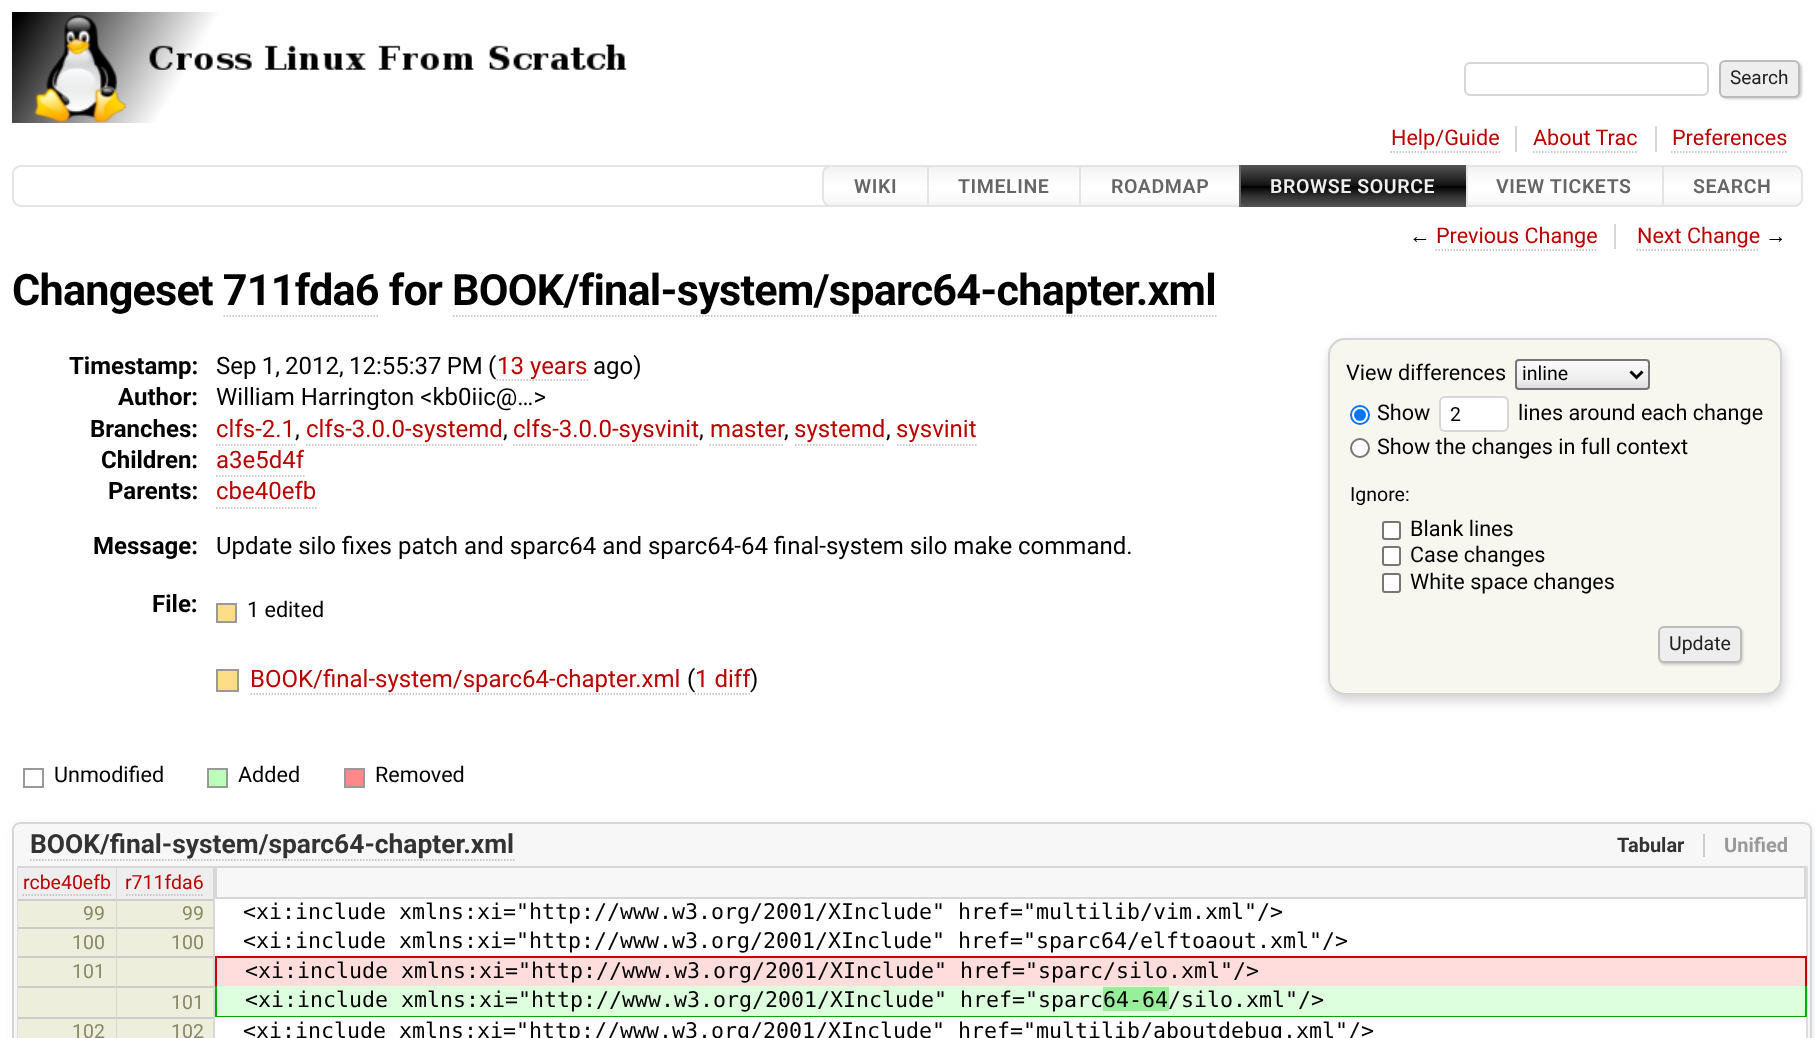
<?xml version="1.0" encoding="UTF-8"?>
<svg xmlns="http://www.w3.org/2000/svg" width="1815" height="1038">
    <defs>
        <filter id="blur1" x="-50%" y="-200%" width="200%" height="500%"><feGaussianBlur stdDeviation="1"/></filter>
        <clipPath id="clip1"><path d="M 831 165 H 929 V 207 H 831 C 826 207 822 203 822 198 V 174 C 822 169 826 165 831 165 Z"/></clipPath>
        <linearGradient id="g1" gradientUnits="userSpaceOnUse" x1="875" y1="167" x2="875" y2="206"><stop offset="0" stop-color="#F2F2F2"/><stop offset="0.25" stop-color="#FAFAFA"/><stop offset="0.49" stop-color="#FEFEFE"/><stop offset="0.51" stop-color="#FFFFFF"/><stop offset="0.85" stop-color="#FAFAFA"/><stop offset="1" stop-color="#F2F2F2"/></linearGradient>
        <linearGradient id="g2" gradientUnits="userSpaceOnUse" x1="1004" y1="167" x2="1004" y2="206"><stop offset="0" stop-color="#F2F2F2"/><stop offset="0.25" stop-color="#FAFAFA"/><stop offset="0.49" stop-color="#FEFEFE"/><stop offset="0.51" stop-color="#FFFFFF"/><stop offset="0.85" stop-color="#FAFAFA"/><stop offset="1" stop-color="#F2F2F2"/></linearGradient>
        <linearGradient id="g3" gradientUnits="userSpaceOnUse" x1="1160" y1="167" x2="1160" y2="206"><stop offset="0" stop-color="#F2F2F2"/><stop offset="0.25" stop-color="#FAFAFA"/><stop offset="0.49" stop-color="#FEFEFE"/><stop offset="0.51" stop-color="#FFFFFF"/><stop offset="0.85" stop-color="#FAFAFA"/><stop offset="1" stop-color="#F2F2F2"/></linearGradient>
        <linearGradient id="g4" gradientUnits="userSpaceOnUse" x1="1353" y1="165" x2="1353" y2="207"><stop offset="0" stop-color="#555555"/><stop offset="0.25" stop-color="#333333"/><stop offset="0.49" stop-color="#111111"/><stop offset="0.51" stop-color="#000000"/><stop offset="0.75" stop-color="#333333"/><stop offset="1" stop-color="#555555"/></linearGradient>
        <linearGradient id="g5" gradientUnits="userSpaceOnUse" x1="1565" y1="167" x2="1565" y2="206"><stop offset="0" stop-color="#F2F2F2"/><stop offset="0.25" stop-color="#FAFAFA"/><stop offset="0.49" stop-color="#FEFEFE"/><stop offset="0.51" stop-color="#FFFFFF"/><stop offset="0.85" stop-color="#FAFAFA"/><stop offset="1" stop-color="#F2F2F2"/></linearGradient>
        <clipPath id="clip2"><path d="M 1662 165 H 1794 C 1799 165 1803 169 1803 174 V 198 C 1803 203 1799 207 1794 207 H 1662 Z"/></clipPath>
        <linearGradient id="g6" gradientUnits="userSpaceOnUse" x1="1733" y1="167" x2="1733" y2="206"><stop offset="0" stop-color="#F2F2F2"/><stop offset="0.25" stop-color="#FAFAFA"/><stop offset="0.49" stop-color="#FEFEFE"/><stop offset="0.51" stop-color="#FFFFFF"/><stop offset="0.85" stop-color="#FAFAFA"/><stop offset="1" stop-color="#F2F2F2"/></linearGradient>
        <filter id="blur2" x="-50%" y="-200%" width="200%" height="500%"><feGaussianBlur stdDeviation="5.5"/></filter>
        <clipPath id="clip3"><rect x="1515" y="359" width="135" height="31" rx="4"/></clipPath>
        <linearGradient id="g7" gradientUnits="userSpaceOnUse" x1="1583" y1="389" x2="1583" y2="360"><stop offset="0" stop-color="#DBDBDB"/><stop offset="0.3" stop-color="#EEEEEE"/><stop offset="1" stop-color="#FBFBFB"/></linearGradient>
        <filter id="blur3" x="-50%" y="-200%" width="200%" height="500%"><feGaussianBlur stdDeviation="9"/></filter>
    </defs>
    <rect width="100%" height="100%" fill="#FFFFFF"/>
    <image x="12" y="12" width="615" height="111" href="img_01.png"/>
    <rect x="1465" y="63" width="243" height="32" rx="5" fill="none" stroke="#D7D7D7" stroke-width="2"/>
    <rect x="1721" y="62" width="81" height="37" rx="6" fill="#CCCCCC" filter="url(#blur1)"/>
    <rect x="1720" y="61" width="79" height="36" rx="5" fill="#EEEEEE" stroke="#BBBBBB" stroke-width="2"/>
    <text x="1730" y="84" font-family="Roboto" font-size="19" fill="#222222">Search</text>
    <rect x="1515" y="126" width="2" height="26" fill="#D7D7D7"/>
    <text x="1391" y="145" font-family="Roboto" font-size="21.6" fill="#BB0000">Help/Guide</text>
    <path d="M 1390.5 152 H 1500" fill="none" stroke="#BBBBBB" stroke-width="1.5" stroke-dasharray="1.5 1.5"/>
    <rect x="1655" y="126" width="2" height="26" fill="#D7D7D7"/>
    <text x="1533" y="145" font-family="Roboto" font-size="21.6" fill="#BB0000">About Trac</text>
    <path d="M 1533 152 H 1638" fill="none" stroke="#BBBBBB" stroke-width="1.5" stroke-dasharray="1.5 1.5"/>
    <text x="1672" y="145" font-family="Roboto" font-size="21.6" fill="#BB0000">Preferences</text>
    <path d="M 1671 152 H 1786.5" fill="none" stroke="#BBBBBB" stroke-width="1.5" stroke-dasharray="1.5 1.5"/>
    <rect x="13" y="166" width="1789" height="40" rx="8" fill="none" stroke="#E4E4E4" stroke-width="2"/>
    <g clip-path="url(#clip1)">
        <rect x="822" y="167" width="105" height="39" fill="url(#g1)"/>
    </g>
    <path d="M 831 166 H 928 V 206 H 831 C 826.5 206 823 202.5 823 198 V 174 C 823 169.5 826.5 166 831 166 Z" fill="none" stroke="#E4E4E4" stroke-width="2"/>
    <text x="854" y="193" font-family="Roboto" font-size="19.5" font-weight="600" letter-spacing="0.6" fill="#666666">WIKI</text>
    <rect x="929" y="167" width="150" height="38" fill="url(#g2)"/>
    <rect x="928" y="166" width="153" height="40" fill="none" stroke="#E4E4E4" stroke-width="2"/>
    <text x="958" y="193" font-family="Roboto" font-size="19.5" font-weight="600" letter-spacing="0.6" fill="#666666">TIMELINE</text>
    <rect x="1081" y="167" width="158" height="38" fill="url(#g3)"/>
    <rect x="1080" y="166" width="160" height="40" fill="none" stroke="#E4E4E4" stroke-width="2"/>
    <text x="1111" y="193" font-family="Roboto" font-size="19.5" font-weight="600" letter-spacing="0.6" fill="#666666">ROADMAP</text>
    <rect x="1240" y="166" width="226" height="40" fill="none" stroke="#666666" stroke-width="2"/>
    <rect x="1241" y="165" width="225" height="42" fill="url(#g4)"/>
    <text x="1270" y="193" font-family="Roboto" font-size="19.5" font-weight="600" letter-spacing="0.6" fill="#EEEEEE">BROWSE SOURCE</text>
    <rect x="1468" y="167" width="194" height="38" fill="url(#g5)"/>
    <rect x="1467" y="166" width="196" height="40" fill="none" stroke="#E4E4E4" stroke-width="2"/>
    <text x="1496" y="193" font-family="Roboto" font-size="19.5" font-weight="600" letter-spacing="0.6" fill="#666666">VIEW TICKETS</text>
    <g clip-path="url(#clip2)">
        <rect x="1664" y="167" width="139" height="39" fill="url(#g6)"/>
    </g>
    <path d="M 1663 166 H 1794 C 1798.5 166 1802 169.5 1802 174 V 198 C 1802 202.5 1798.5 206 1794 206 H 1663 Z" fill="none" stroke="#E4E4E4" stroke-width="2"/>
    <text x="1693" y="193" font-family="Roboto" font-size="19.5" font-weight="600" letter-spacing="0.6" fill="#666666">SEARCH</text>
    <rect x="1614" y="224" width="2" height="25" fill="#D7D7D7"/>
    <text x="1409" y="243" font-family="Liberation Sans" font-size="21.6" fill="#000000">←</text>
    <text x="1436" y="243" font-family="Roboto" font-size="21.6" fill="#BB0000">Previous Change</text>
    <path d="M 1435.5 250 H 1597.5" fill="none" stroke="#BBBBBB" stroke-width="1.5" stroke-dasharray="1.5 1.5"/>
    <text x="1637" y="243" font-family="Roboto" font-size="21.6" fill="#BB0000">Next Change</text>
    <path d="M 1636.5 250 H 1759.5" fill="none" stroke="#BBBBBB" stroke-width="1.5" stroke-dasharray="1.5 1.5"/>
    <text x="1765" y="243" font-family="Liberation Sans" font-size="21.6" fill="#000000">→</text>
    <text x="12" y="305" font-family="Roboto" font-size="43.2" font-weight="700" letter-spacing="-0.78" fill="#000000">Changeset 711fda6 for BOOK/final-system/sparc64-chapter.xml</text>
    <path d="M 223.5 316 H 379.5" fill="none" stroke="#BBBBBB" stroke-width="1.5" stroke-dasharray="1.5 1.5"/>
    <path d="M 453 316 H 1216.5" fill="none" stroke="#BBBBBB" stroke-width="1.5" stroke-dasharray="1.5 1.5"/>
    <text x="69" y="374" font-family="Roboto" font-size="24" font-weight="700" fill="#000000">Timestamp:</text>
    <text x="216" y="374" word-spacing="-0.75" font-family="Roboto" font-size="24" fill="#000000">Sep 1, 2012, 12:55:37 PM (</text>
    <path d="M 496.5 380 H 588" fill="none" stroke="#BBBBBB" stroke-width="1.5" stroke-dasharray="1.5 1.5"/>
    <text x="497" y="374" font-family="Roboto" font-size="24" fill="#BB0000">13 years</text>
    <text x="593" y="374" font-family="Roboto" font-size="24" fill="#000000">ago)</text>
    <text x="118" y="405" font-family="Roboto" font-size="24" font-weight="700" fill="#000000">Author:</text>
    <text x="216" y="405" font-family="Roboto" font-size="24" fill="#000000">William Harrington &lt;kb0iic@…&gt;</text>
    <text x="90" y="437" font-family="Roboto" font-size="24" font-weight="700" fill="#000000">Branches:</text>
    <text x="216" y="437" font-family="Roboto" font-size="24" fill="#BB0000">clfs-2.1</text>
    <path d="M 216 445 H 295.5" fill="none" stroke="#BBBBBB" stroke-width="1.5" stroke-dasharray="1.5 1.5"/>
    <text x="295" y="437" font-family="Roboto" font-size="24" fill="#000000">,</text>
    <text x="306" y="437" font-family="Roboto" font-size="24" fill="#BB0000">clfs-3.0.0-systemd</text>
    <path d="M 306 445 H 502.5" fill="none" stroke="#BBBBBB" stroke-width="1.5" stroke-dasharray="1.5 1.5"/>
    <text x="503" y="437" font-family="Roboto" font-size="24" fill="#000000">,</text>
    <text x="513" y="437" font-family="Roboto" font-size="24" fill="#BB0000">clfs-3.0.0-sysvinit</text>
    <path d="M 513 445 H 699" fill="none" stroke="#BBBBBB" stroke-width="1.5" stroke-dasharray="1.5 1.5"/>
    <text x="699" y="437" font-family="Roboto" font-size="24" fill="#000000">,</text>
    <text x="710" y="437" font-family="Roboto" font-size="24" fill="#BB0000">master</text>
    <path d="M 709.5 445 H 784.5" fill="none" stroke="#BBBBBB" stroke-width="1.5" stroke-dasharray="1.5 1.5"/>
    <text x="784" y="437" font-family="Roboto" font-size="24" fill="#000000">,</text>
    <text x="794" y="437" font-family="Roboto" font-size="24" fill="#BB0000">systemd</text>
    <path d="M 795 445 H 885" fill="none" stroke="#BBBBBB" stroke-width="1.5" stroke-dasharray="1.5 1.5"/>
    <text x="886" y="437" font-family="Roboto" font-size="24" fill="#000000">,</text>
    <text x="896" y="437" font-family="Roboto" font-size="24" fill="#BB0000">sysvinit</text>
    <path d="M 897 445 H 976.5" fill="none" stroke="#BBBBBB" stroke-width="1.5" stroke-dasharray="1.5 1.5"/>
    <text x="101" y="468" font-family="Roboto" font-size="24" font-weight="700" fill="#000000">Children:</text>
    <text x="216" y="468" font-family="Roboto" font-size="24" fill="#BB0000">a3e5d4f</text>
    <path d="M 216 476 H 304.5" fill="none" stroke="#BBBBBB" stroke-width="1.5" stroke-dasharray="1.5 1.5"/>
    <text x="108" y="499" font-family="Roboto" font-size="24" font-weight="700" fill="#000000">Parents:</text>
    <text x="216" y="499" font-family="Roboto" font-size="24" fill="#BB0000">cbe40efb</text>
    <path d="M 216 508 H 316.5" fill="none" stroke="#BBBBBB" stroke-width="1.5" stroke-dasharray="1.5 1.5"/>
    <text x="93" y="554" font-family="Roboto" font-size="24" font-weight="700" fill="#000000">Message:</text>
    <text x="216" y="554" font-family="Roboto" font-size="24" fill="#000000">Update silo fixes patch and sparc64 and sparc64-64 final-system silo make command.</text>
    <text x="152" y="612" font-family="Roboto" font-size="24" font-weight="700" fill="#000000">File:</text>
    <rect x="217" y="604" width="19" height="18" fill="#FFDD88" stroke="#999999" stroke-width="2"/>
    <text x="247" y="617" font-family="Roboto" font-size="21.6" fill="#000000">1 edited</text>
    <rect x="217" y="670" width="21" height="21" fill="#FFDD88" stroke="#999999" stroke-width="2"/>
    <text x="250" y="687" font-family="Roboto" font-size="24" fill="#BB0000">BOOK/final-system/sparc64-chapter.xml</text>
    <path d="M 250.5 694 H 687" fill="none" stroke="#BBBBBB" stroke-width="1.5" stroke-dasharray="1.5 1.5"/>
    <text x="687" y="687" font-family="Roboto" font-size="24" fill="#000000">(</text>
    <text x="695" y="687" font-family="Roboto" font-size="24" fill="#BB0000">1 diff</text>
    <path d="M 694.5 694 H 750" fill="none" stroke="#BBBBBB" stroke-width="1.5" stroke-dasharray="1.5 1.5"/>
    <text x="750" y="687" font-family="Roboto" font-size="24" fill="#000000">)</text>
    <rect x="1329" y="344" width="455" height="357" rx="17" fill="#D4D4D4" filter="url(#blur2)"/>
    <rect x="1329" y="339" width="452" height="355" rx="16" fill="#F7F7F0" stroke="#D4D4D4" stroke-width="2"/>
    <text x="1346" y="380" font-family="Roboto" font-size="21.6" fill="#000000">View differences</text>
    <g clip-path="url(#clip3)">
        <rect x="1515" y="360" width="135" height="29" fill="url(#g7)"/>
    </g>
    <rect x="1516" y="360" width="133" height="29" rx="3" fill="none" stroke="#767676" stroke-width="2"/>
    <path d="M 1630.5 371.5 L 1636.5 377.5 L 1642.5 371.5" fill="none" stroke="#000000" stroke-width="3"/>
    <text x="1522" y="380" font-family="Roboto" font-size="19.5" fill="#000000">inline</text>
    <circle cx="1360" cy="415" r="9" fill="#FFFFFF" stroke="#0075FF" stroke-width="2"/>
    <circle cx="1360" cy="415" r="6" fill="#0075FF"/>
    <text x="1377" y="420" font-family="Roboto" font-size="21.6" fill="#000000">Show</text>
    <rect x="1440" y="397" width="68" height="34" rx="5" fill="#FFFFFF" stroke="#D7D7D7" stroke-width="2"/>
    <text x="1450" y="421" font-family="Roboto" font-size="19.5" fill="#000000">2</text>
    <text x="1518" y="420" font-family="Roboto" font-size="21.6" fill="#000000">lines around each change</text>
    <circle cx="1360" cy="448" r="9" fill="#FFFFFF" stroke="#767676" stroke-width="2"/>
    <text x="1377" y="454" font-family="Roboto" font-size="21.6" fill="#000000">Show the changes in full context</text>
    <text x="1350" y="501" font-family="Roboto" font-size="19.5" fill="#000000">Ignore:</text>
    <rect x="1383" y="522" width="17" height="17" rx="2" fill="#FFFFFF" stroke="#767676" stroke-width="2"/>
    <text x="1410" y="536" font-family="Roboto" font-size="21.6" fill="#000000">Blank lines</text>
    <rect x="1383" y="547" width="17" height="18" rx="2" fill="#FFFFFF" stroke="#767676" stroke-width="2"/>
    <text x="1410" y="562" font-family="Roboto" font-size="21.6" fill="#000000">Case changes</text>
    <rect x="1383" y="574" width="17" height="18" rx="2" fill="#FFFFFF" stroke="#767676" stroke-width="2"/>
    <text x="1410" y="589" font-family="Roboto" font-size="21.6" fill="#000000">White space changes</text>
    <rect x="1659" y="627" width="84" height="38" rx="6" fill="#CCCCCC" filter="url(#blur1)"/>
    <rect x="1659" y="627" width="82" height="35" rx="5" fill="#EEEEEE" stroke="#BBBBBB" stroke-width="2"/>
    <text x="1669" y="650" font-family="Roboto" font-size="19.5" fill="#222222">Update</text>
    <rect x="24" y="769" width="19" height="18" fill="none" stroke="#999999" stroke-width="2"/>
    <text x="54" y="782" font-family="Roboto" font-size="21.6" fill="#000000">Unmodified</text>
    <rect x="208" y="769" width="19" height="18" fill="#BBFFBB" stroke="#999999" stroke-width="2"/>
    <text x="238" y="782" font-family="Roboto" font-size="21.6" fill="#000000">Added</text>
    <rect x="345" y="769" width="19" height="18" fill="#FF8888" stroke="#999999" stroke-width="2"/>
    <text x="375" y="782" font-family="Roboto" font-size="21.6" fill="#000000">Removed</text>
    <rect x="17" y="827" width="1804" height="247" rx="9" fill="#D2D7DC" fill-opacity="0.3" filter="url(#blur3)"/>
    <rect x="13" y="823" width="1798" height="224" rx="7" fill="#F7F7F7" stroke="#D7D7D7" stroke-width="2"/>
    <text x="30" y="853" font-family="Roboto" font-size="26.4" font-weight="700" fill="#333333">BOOK/final-system/sparc64-chapter.xml</text>
    <path d="M 30 860 H 514.5" fill="none" stroke="#BBBBBB" stroke-width="1.5" stroke-dasharray="1.5 1.5"/>
    <text x="1617" y="852" font-family="Roboto" font-size="20" font-weight="700" fill="#333333">Tabular</text>
    <text x="1724" y="852" font-family="Roboto" font-size="20" font-weight="700" fill="#999999">Unified</text>
    <rect x="1703" y="834" width="2" height="23" fill="#CCCCCC"/>
    <rect x="1806" y="866" width="2" height="172" fill="#DDDDDD"/>
    <rect x="17" y="866" width="1" height="172" fill="#DDDDDD"/>
    <rect x="18" y="868" width="98" height="31" fill="#EEEEEE"/>
    <rect x="18" y="866" width="197" height="2" fill="#D7D7D7"/>
    <rect x="116" y="866" width="1" height="33" fill="#D7D7D7"/>
    <text x="23" y="889" font-family="Roboto" font-size="19.5" fill="#BB0000">rcbe40efb</text>
    <path d="M 22.5 895 H 111" fill="none" stroke="#BBBBBB" stroke-width="1.5" stroke-dasharray="1.5 1.5"/>
    <rect x="117" y="868" width="96" height="31" fill="#EEEEEE"/>
    <rect x="213" y="866" width="2" height="33" fill="#D7D7D7"/>
    <text x="125" y="889" font-family="Roboto" font-size="19.5" fill="#BB0000">r711fda6</text>
    <path d="M 126 895 H 204" fill="none" stroke="#BBBBBB" stroke-width="1.5" stroke-dasharray="1.5 1.5"/>
    <rect x="216" y="867" width="1589" height="31" fill="none" stroke="#D7D7D7" stroke-width="2"/>
    <rect x="18" y="901" width="98" height="26" fill="#EEEEDD"/>
    <rect x="18" y="899" width="197" height="2" fill="#CCCCCC"/>
    <rect x="116" y="899" width="1" height="28" fill="#D7D7D7"/>
    <text x="83" y="920" font-family="Roboto" font-size="19.5" fill="#888866">99</text>
    <rect x="117" y="901" width="96" height="26" fill="#EEEEDD"/>
    <rect x="213" y="899" width="2" height="28" fill="#D7D7D7"/>
    <text x="182" y="920" font-family="Roboto" font-size="19.5" fill="#888866">99</text>
    <rect x="215" y="899" width="1591" height="57" fill="#FFFFFF"/>
    <text x="243" y="919" font-family="DejaVu Sans Mono" font-size="21.6" fill="#000000">&lt;xi:include xmlns:xi="http://www.w3.org/2001/XInclude" href="multilib/vim.xml"/&gt;</text>
    <rect x="18" y="929" width="98" height="27" fill="#EEEEDD"/>
    <rect x="18" y="927" width="197" height="2" fill="#CCCCCC"/>
    <rect x="116" y="927" width="1" height="29" fill="#D7D7D7"/>
    <text x="72" y="949" font-family="Roboto" font-size="19.5" fill="#888866">100</text>
    <rect x="117" y="929" width="96" height="27" fill="#EEEEDD"/>
    <rect x="213" y="927" width="2" height="29" fill="#D7D7D7"/>
    <text x="171" y="949" font-family="Roboto" font-size="19.5" fill="#888866">100</text>
    <text x="243" y="948" font-family="DejaVu Sans Mono" font-size="21.6" fill="#000000">&lt;xi:include xmlns:xi="http://www.w3.org/2001/XInclude" href="sparc64/elftoaout.xml"/&gt;</text>
    <rect x="18" y="958" width="98" height="28" fill="#EEEEDD"/>
    <rect x="18" y="956" width="197" height="2" fill="#CCCCCC"/>
    <rect x="116" y="956" width="1" height="30" fill="#D7D7D7"/>
    <text x="72" y="978" font-family="Roboto" font-size="19.5" fill="#888866">101</text>
    <rect x="117" y="958" width="96" height="28" fill="#EEEEDD"/>
    <rect x="213" y="956" width="2" height="30" fill="#D7D7D7"/>
    <rect x="217" y="958" width="1588" height="28" fill="#FFDDDD"/>
    <rect x="215" y="956" width="1591" height="2" fill="#CC0000"/>
    <rect x="1805" y="956" width="2" height="30" fill="#CC0000"/>
    <rect x="215" y="956" width="2" height="30" fill="#CC0000"/>
    <text x="245" y="978" font-family="DejaVu Sans Mono" font-size="21.6" fill="#000000">&lt;xi:include xmlns:xi="http://www.w3.org/2001/XInclude" href="sparc</text>
    <text x="1103" y="978" font-family="DejaVu Sans Mono" font-size="21.6" fill="#000000">/silo.xml"/&gt;</text>
    <rect x="18" y="988" width="98" height="29" fill="#EEEEDD"/>
    <rect x="18" y="986" width="197" height="2" fill="#CCCCCC"/>
    <rect x="116" y="986" width="1" height="31" fill="#D7D7D7"/>
    <rect x="217" y="986" width="1588" height="30" fill="#DDFFDD"/>
    <rect x="1805" y="986" width="2" height="31" fill="#00AA00"/>
    <rect x="215" y="1016" width="1591" height="1" fill="#00AA00"/>
    <rect x="215" y="986" width="2" height="31" fill="#00AA00"/>
    <text x="245" y="1007" font-family="DejaVu Sans Mono" font-size="21.6" fill="#000000">&lt;xi:include xmlns:xi="http://www.w3.org/2001/XInclude" href="sparc</text>
    <rect x="1103" y="987" width="66" height="24" fill="#99EE99"/>
    <text x="1103" y="1007" font-family="DejaVu Sans Mono" font-size="21.6" fill="#000000">64-64/silo.xml"/&gt;</text>
    <rect x="117" y="988" width="96" height="29" fill="#EEEEDD"/>
    <rect x="213" y="986" width="2" height="31" fill="#D7D7D7"/>
    <text x="171" y="1009" font-family="Roboto" font-size="19.5" fill="#888866">101</text>
    <rect x="18" y="1019" width="98" height="19" fill="#EEEEDD"/>
    <rect x="18" y="1017" width="197" height="2" fill="#CCCCCC"/>
    <rect x="116" y="1017" width="1" height="21" fill="#D7D7D7"/>
    <text x="72" y="1038" font-family="Roboto" font-size="19.5" fill="#888866">102</text>
    <rect x="117" y="1019" width="96" height="19" fill="#EEEEDD"/>
    <rect x="213" y="1017" width="2" height="21" fill="#D7D7D7"/>
    <text x="171" y="1038" font-family="Roboto" font-size="19.5" fill="#888866">102</text>
    <rect x="215" y="1017" width="1591" height="21" fill="#FFFFFF"/>
    <text x="243" y="1038" font-family="DejaVu Sans Mono" font-size="21.6" fill="#000000">&lt;xi:include xmlns:xi="http://www.w3.org/2001/XInclude" href="multilib/aboutdebug.xml"/&gt;</text>
</svg>
